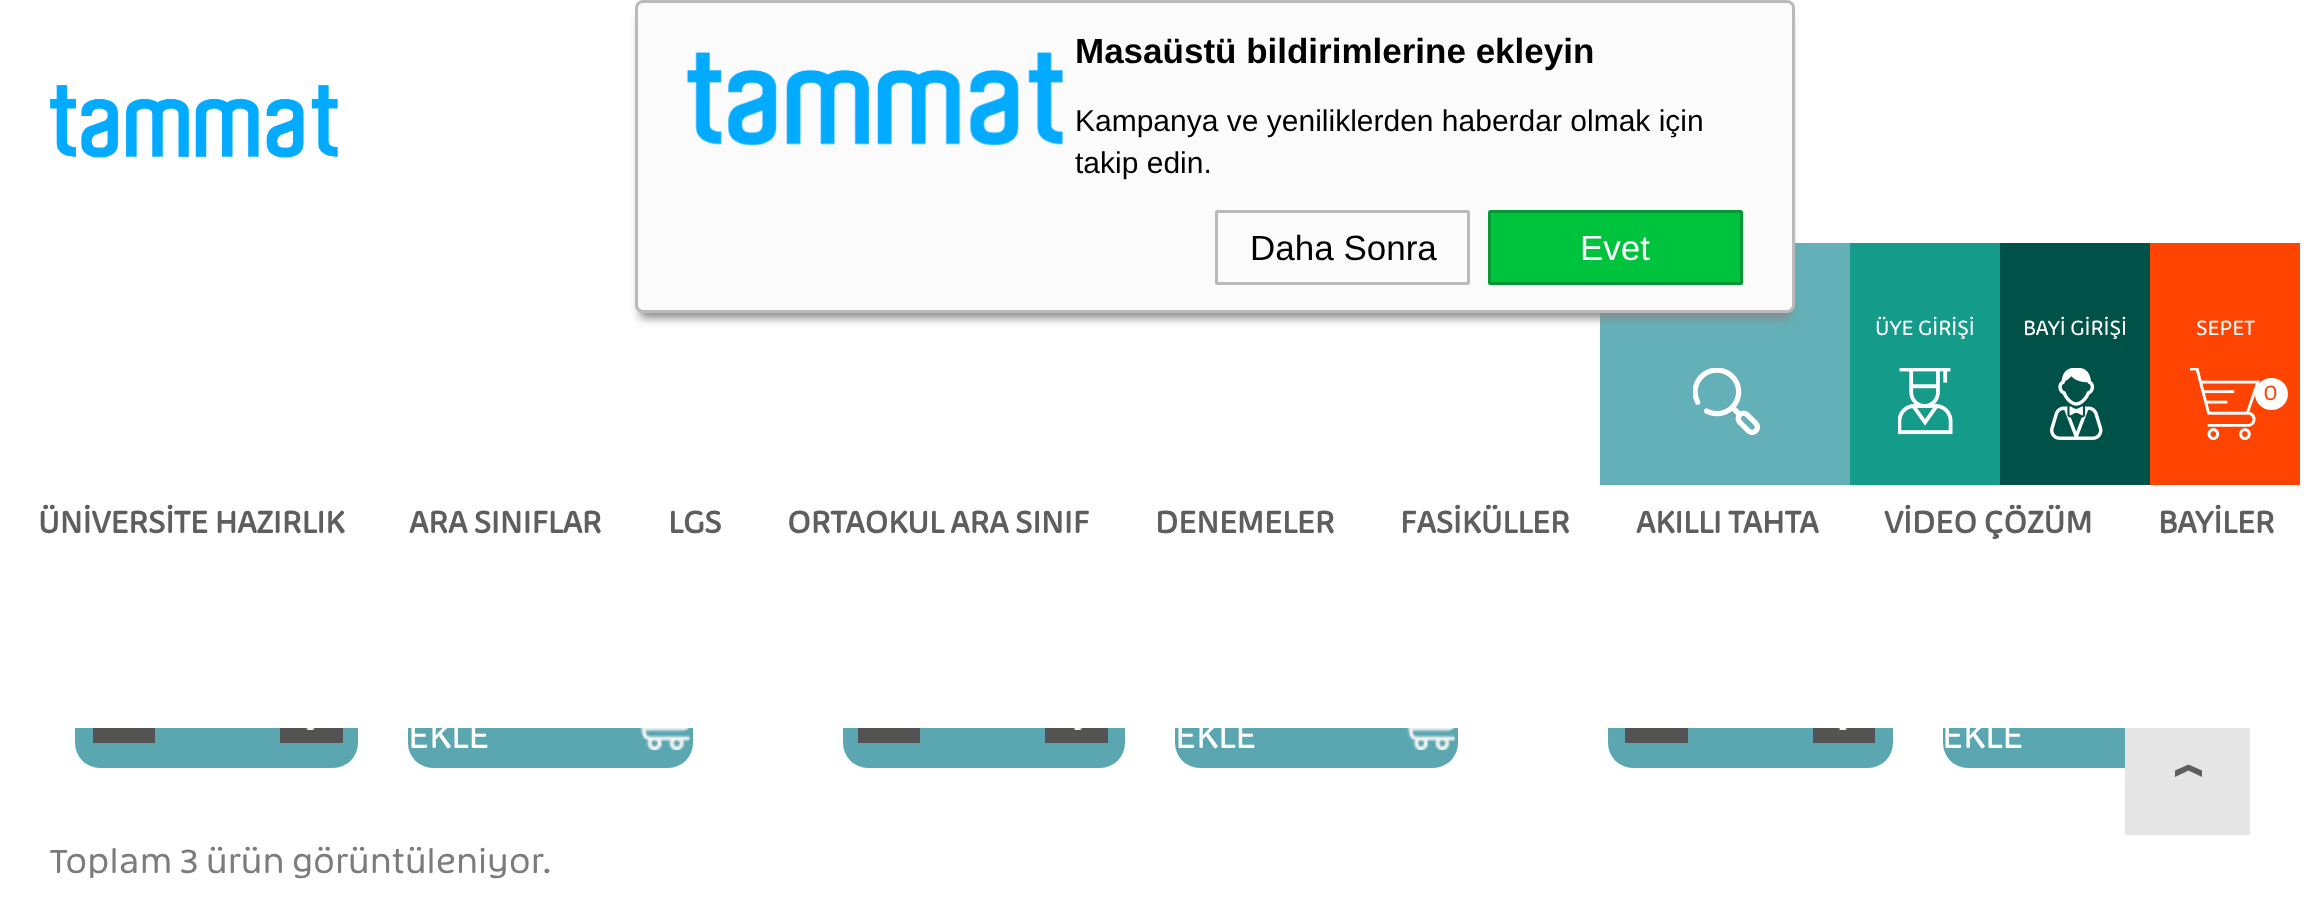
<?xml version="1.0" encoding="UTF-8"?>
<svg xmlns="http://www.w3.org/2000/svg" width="2323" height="908">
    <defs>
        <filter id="blur1" x="-50%" y="-200%" width="200%" height="500%"><feGaussianBlur stdDeviation="5"/></filter>
    </defs>
    <rect width="100%" height="100%" fill="#FFFFFF"/>
    <rect x="1600" y="243" width="250" height="242" fill="#64B0B8"/>
    <rect x="640" y="15" width="1150" height="303" rx="2.5" fill="#888888" filter="url(#blur1)"/>
    <rect x="636.5" y="1.5" width="1157" height="310" rx="6.5" fill="#FBFBFB" stroke="#BABABA" stroke-width="3"/>
    <image x="687" y="52" width="376" height="93" href="img_01.png"/>
    <text x="1075" y="63" font-family="Liberation Sans" font-size="35" font-weight="700" fill="#000000">Masaüstü bildirimlerine ekleyin</text>
    <text font-family="Liberation Sans" font-size="30" fill="#000000">
        <tspan x="1075" y="131">Kampanya ve yeniliklerden haberdar olmak için</tspan>
        <tspan x="1075" y="173">takip edin.</tspan>
    </text>
    <rect x="1216.5" y="211.5" width="252" height="72" rx="1" fill="none" stroke="#BABABA" stroke-width="3"/>
    <text x="1250" y="260" font-family="Liberation Sans" font-size="35" fill="#000000">Daha Sonra</text>
    <rect x="1489.5" y="211.5" width="252" height="72" rx="1" fill="#00C33D" stroke="#059833" stroke-width="3"/>
    <text x="1580" y="260" font-family="Liberation Sans" font-size="35" fill="#FFFFFF">Evet</text>
    <rect x="75" y="668" width="283" height="100" rx="25" fill="#5AA7B2"/>
    <rect x="408" y="668" width="285" height="100" rx="25" fill="#5AA7B2"/>
    <rect x="843" y="668" width="282" height="100" rx="25" fill="#5AA7B2"/>
    <rect x="1175" y="668" width="283" height="100" rx="25" fill="#5AA7B2"/>
    <rect x="1608" y="668" width="285" height="100" rx="25" fill="#5AA7B2"/>
    <rect x="1943" y="668" width="282" height="100" rx="25" fill="#5AA7B2"/>
    <rect x="75" y="668" width="2150" height="60" fill="#FFFFFF"/>
    <image x="50" y="85" width="288" height="73" href="img_02.png"/>
    <image x="1693" y="368" width="67" height="67" href="img_03.png"/>
    <rect x="1850" y="243" width="150" height="242" fill="#159B8A"/>
    <image x="1898" y="368" width="55" height="67" href="img_04.png"/>
    <text x="1875" y="335" font-family="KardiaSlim" font-size="20" fill="#FFFFFF">ÜYE GİRİŞİ</text>
    <rect x="2000" y="243" width="150" height="242" fill="#005249"/>
    <image x="2050" y="368" width="53" height="72" href="img_05.png"/>
    <text x="2023" y="335" font-family="KardiaSlim" font-size="20" fill="#FFFFFF">BAYİ GİRİŞİ</text>
    <rect x="2150" y="243" width="150" height="242" fill="#FF4300"/>
    <image x="2190" y="368" width="70" height="72" href="img_06.png"/>
    <text x="2196" y="335" font-family="KardiaSlim" font-size="20" fill="#FFFFFF">SEPET</text>
    <rect x="2255" y="378" width="33" height="32" rx="16" fill="#FFFFFF"/>
    <text x="2263" y="400" font-family="KardiaSlim" font-size="20" fill="#FF4300">0</text>
    <text x="38" y="533" font-family="KardiaSlim" font-size="30" font-weight="700" fill="#5E5E5E">ÜNİVERSİTE HAZIRLIK</text>
    <text x="409" y="533" font-family="KardiaSlim" font-size="30" font-weight="700" fill="#5E5E5E">ARA SINIFLAR</text>
    <text x="668" y="533" font-family="KardiaSlim" font-size="30" font-weight="700" fill="#5E5E5E">LGS</text>
    <text x="787" y="533" font-family="KardiaSlim" font-size="30" font-weight="700" fill="#5E5E5E">ORTAOKUL ARA SINIF</text>
    <text x="1155" y="533" font-family="KardiaSlim" font-size="30" font-weight="700" fill="#5E5E5E">DENEMELER</text>
    <text x="1400" y="533" font-family="KardiaSlim" font-size="30" font-weight="700" fill="#5E5E5E">FASİKÜLLER</text>
    <text x="1636" y="533" font-family="KardiaSlim" font-size="30" font-weight="700" fill="#5E5E5E">AKILLI TAHTA</text>
    <text x="1884" y="533" font-family="KardiaSlim" font-size="30" font-weight="700" fill="#5E5E5E">VİDEO ÇÖZÜM</text>
    <text x="2158" y="533" font-family="KardiaSlim" font-size="30" font-weight="700" fill="#5E5E5E">BAYİLER</text>
    <rect x="2125" y="728" width="125" height="107" fill="#E5E5E5"/>
    <path d="M 2188.5 770.5 L 2175 777 V 770.5 L 2188.5 764.5 L 2202 770.5 V 777 Z" fill="#5E5E5E"/>
    <rect x="93" y="728" width="62" height="15" fill="#535352"/>
    <rect x="280" y="728" width="63" height="15" fill="#535352"/>
    <image x="305" y="728" width="10" height="2" href="img_07.png"/>
    <text x="408" y="748" font-family="KardiaSlim" font-size="35" fill="#FFFFFF">EKLE</text>
    <image x="640" y="728" width="52" height="22" href="img_08.png"/>
    <rect x="858" y="728" width="62" height="15" fill="#535352"/>
    <rect x="1045" y="728" width="63" height="15" fill="#535352"/>
    <image x="1073" y="728" width="9" height="2" href="img_09.png"/>
    <text x="1175" y="748" font-family="KardiaSlim" font-size="35" fill="#FFFFFF">EKLE</text>
    <image x="1407" y="728" width="50" height="22" href="img_10.png"/>
    <rect x="1625" y="728" width="63" height="15" fill="#535352"/>
    <rect x="1813" y="728" width="62" height="15" fill="#535352"/>
    <image x="1838" y="728" width="9" height="2" href="img_09.png"/>
    <text x="1942" y="748" font-family="KardiaSlim" font-size="35" fill="#FFFFFF">EKLE</text>
    <text x="50" y="873" font-family="KardiaSlim" font-size="32.5" fill="#7C7C7C">Toplam 3 ürün görüntüleniyor.</text>
</svg>
